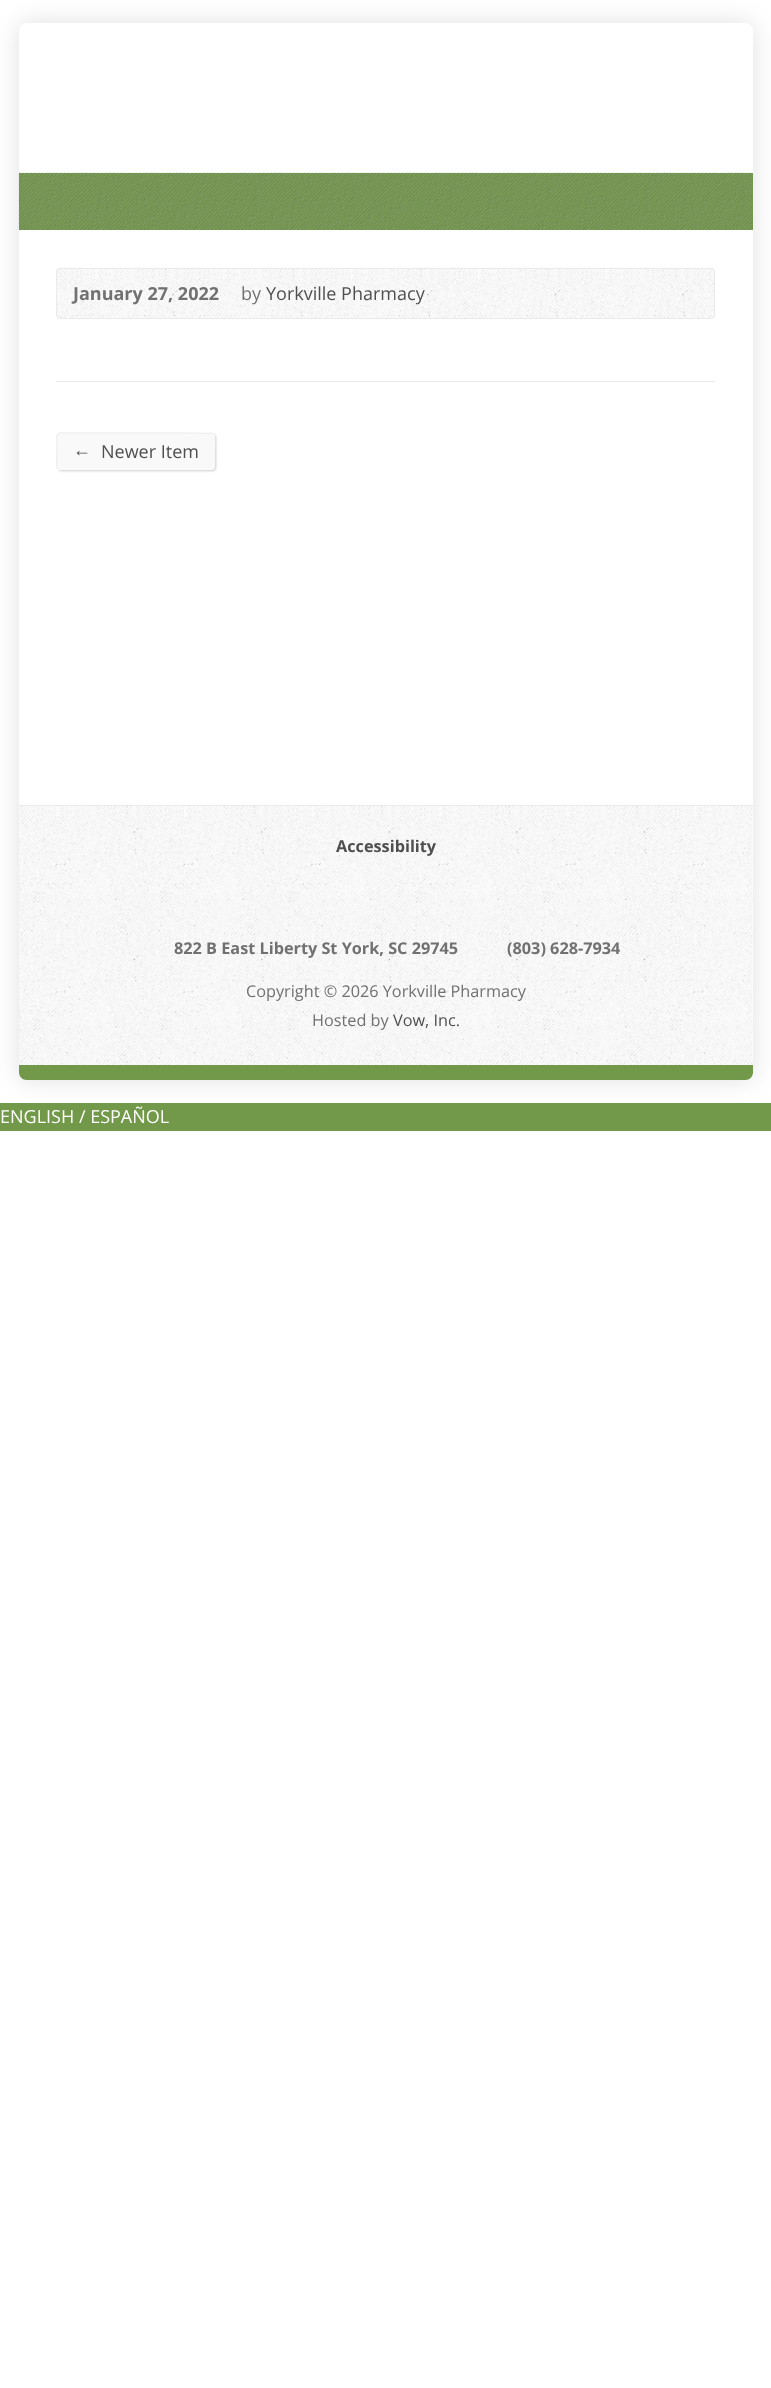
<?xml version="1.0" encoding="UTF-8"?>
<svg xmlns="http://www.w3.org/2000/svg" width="771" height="2388">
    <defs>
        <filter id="blur1" x="-50%" y="-200%" width="200%" height="500%"><feGaussianBlur stdDeviation="12.5"/></filter>
        <filter id="blur2" x="-50%" y="-200%" width="200%" height="500%"><feGaussianBlur stdDeviation="1"/></filter>
    </defs>
    <rect width="100%" height="100%" fill="#FFFFFF"/>
    <rect x="19" y="23" width="734" height="1057" rx="8" fill="#000000" fill-opacity="0.12" filter="url(#blur1)"/>
    <rect x="19" y="23" width="734" height="1057" rx="8" fill="#FFFFFF"/>
    <rect x="19" y="173" width="734" height="57" fill="#729949"/>
    <image x="18" y="172" width="735" height="58" href="img_01.png"/>
    <image x="56" y="267" width="659" height="52" href="img_02.png"/>
    <rect x="56.5" y="268.5" width="658" height="50" rx="3.5" fill="none" stroke="#EAEAEA"/>
    <text x="73" y="300" font-family="Open Sans" font-size="18" font-weight="700" fill="#717171">January 27, 2022</text>
    <text x="241" y="300" font-family="Open Sans" font-size="18" fill="#717171">by</text>
    <text x="266" y="300" font-family="Open Sans" font-size="18" fill="#4F4F4F">Yorkville Pharmacy</text>
    <rect x="56" y="381" width="659" height="1" fill="#EAEAEA"/>
    <rect x="58" y="434" width="158" height="37" rx="4" fill="#000000" fill-opacity="0.2" filter="url(#blur2)"/>
    <rect x="56" y="433" width="159" height="37" rx="4" fill="#F9F9F9"/>
    <path d="M 213.5 434 C 215.5 436 214.5 448 214.5 451 V 461 C 214.5 463.5 215.5 469.5 211 469.5 H 85 L 58.5 469 L 58 468.5" fill="none" stroke="#F9F9F9" stroke-width="1.2"/>
    <path d="M 58 468.5 C 55.5 466.5 57 454.5 57 451 V 441 C 57 439 56 433 60 433 H 186 L 212.5 433.5 L 213.5 434" fill="none" stroke="#EEEEEE" stroke-width="1.2"/>
    <text x="73" y="456" font-family="Liberation Sans" font-size="18" fill="#4F4F4F">←</text>
    <text x="101" y="458" font-family="Open Sans" font-size="18" fill="#4F4F4F">Newer Item</text>
    <image x="19" y="806" width="734" height="259" href="img_03.png"/>
    <rect x="19" y="805" width="734" height="1" fill="#EAEAEA"/>
    <text x="336" y="852" font-family="Open Sans" font-size="16.25" font-weight="700" fill="#4F4F4F">Accessibility</text>
    <text x="174" y="954" font-family="Open Sans" font-size="16.25" font-weight="700" fill="#717171">822 B East Liberty St York, SC 29745</text>
    <text x="507" y="954" font-family="Open Sans" font-size="16.25" font-weight="700" fill="#717171">(803) 628-7934</text>
    <text x="246" y="997" font-family="Open Sans" font-size="16.25" fill="#717171">Copyright © 2026 Yorkville Pharmacy</text>
    <text x="312" y="1026" font-family="Open Sans" font-size="16.25" fill="#717171">Hosted by</text>
    <text x="393" y="1026" font-family="Open Sans" font-size="16.25" fill="#4F4F4F">Vow, Inc.</text>
    <path d="M 19 1065 H 753 V 1072.5 C 753 1076.5 749.5 1080 745.5 1080 H 26.5 C 22.5 1080 19 1076.5 19 1072.5 Z" fill="#729949"/>
    <rect x="0" y="1103" width="771" height="28" fill="#729949"/>
    <text x="0" y="1123" font-family="Open Sans" font-size="18" fill="#FFFFFF">ENGLISH / ESPAÑOL</text>
</svg>
